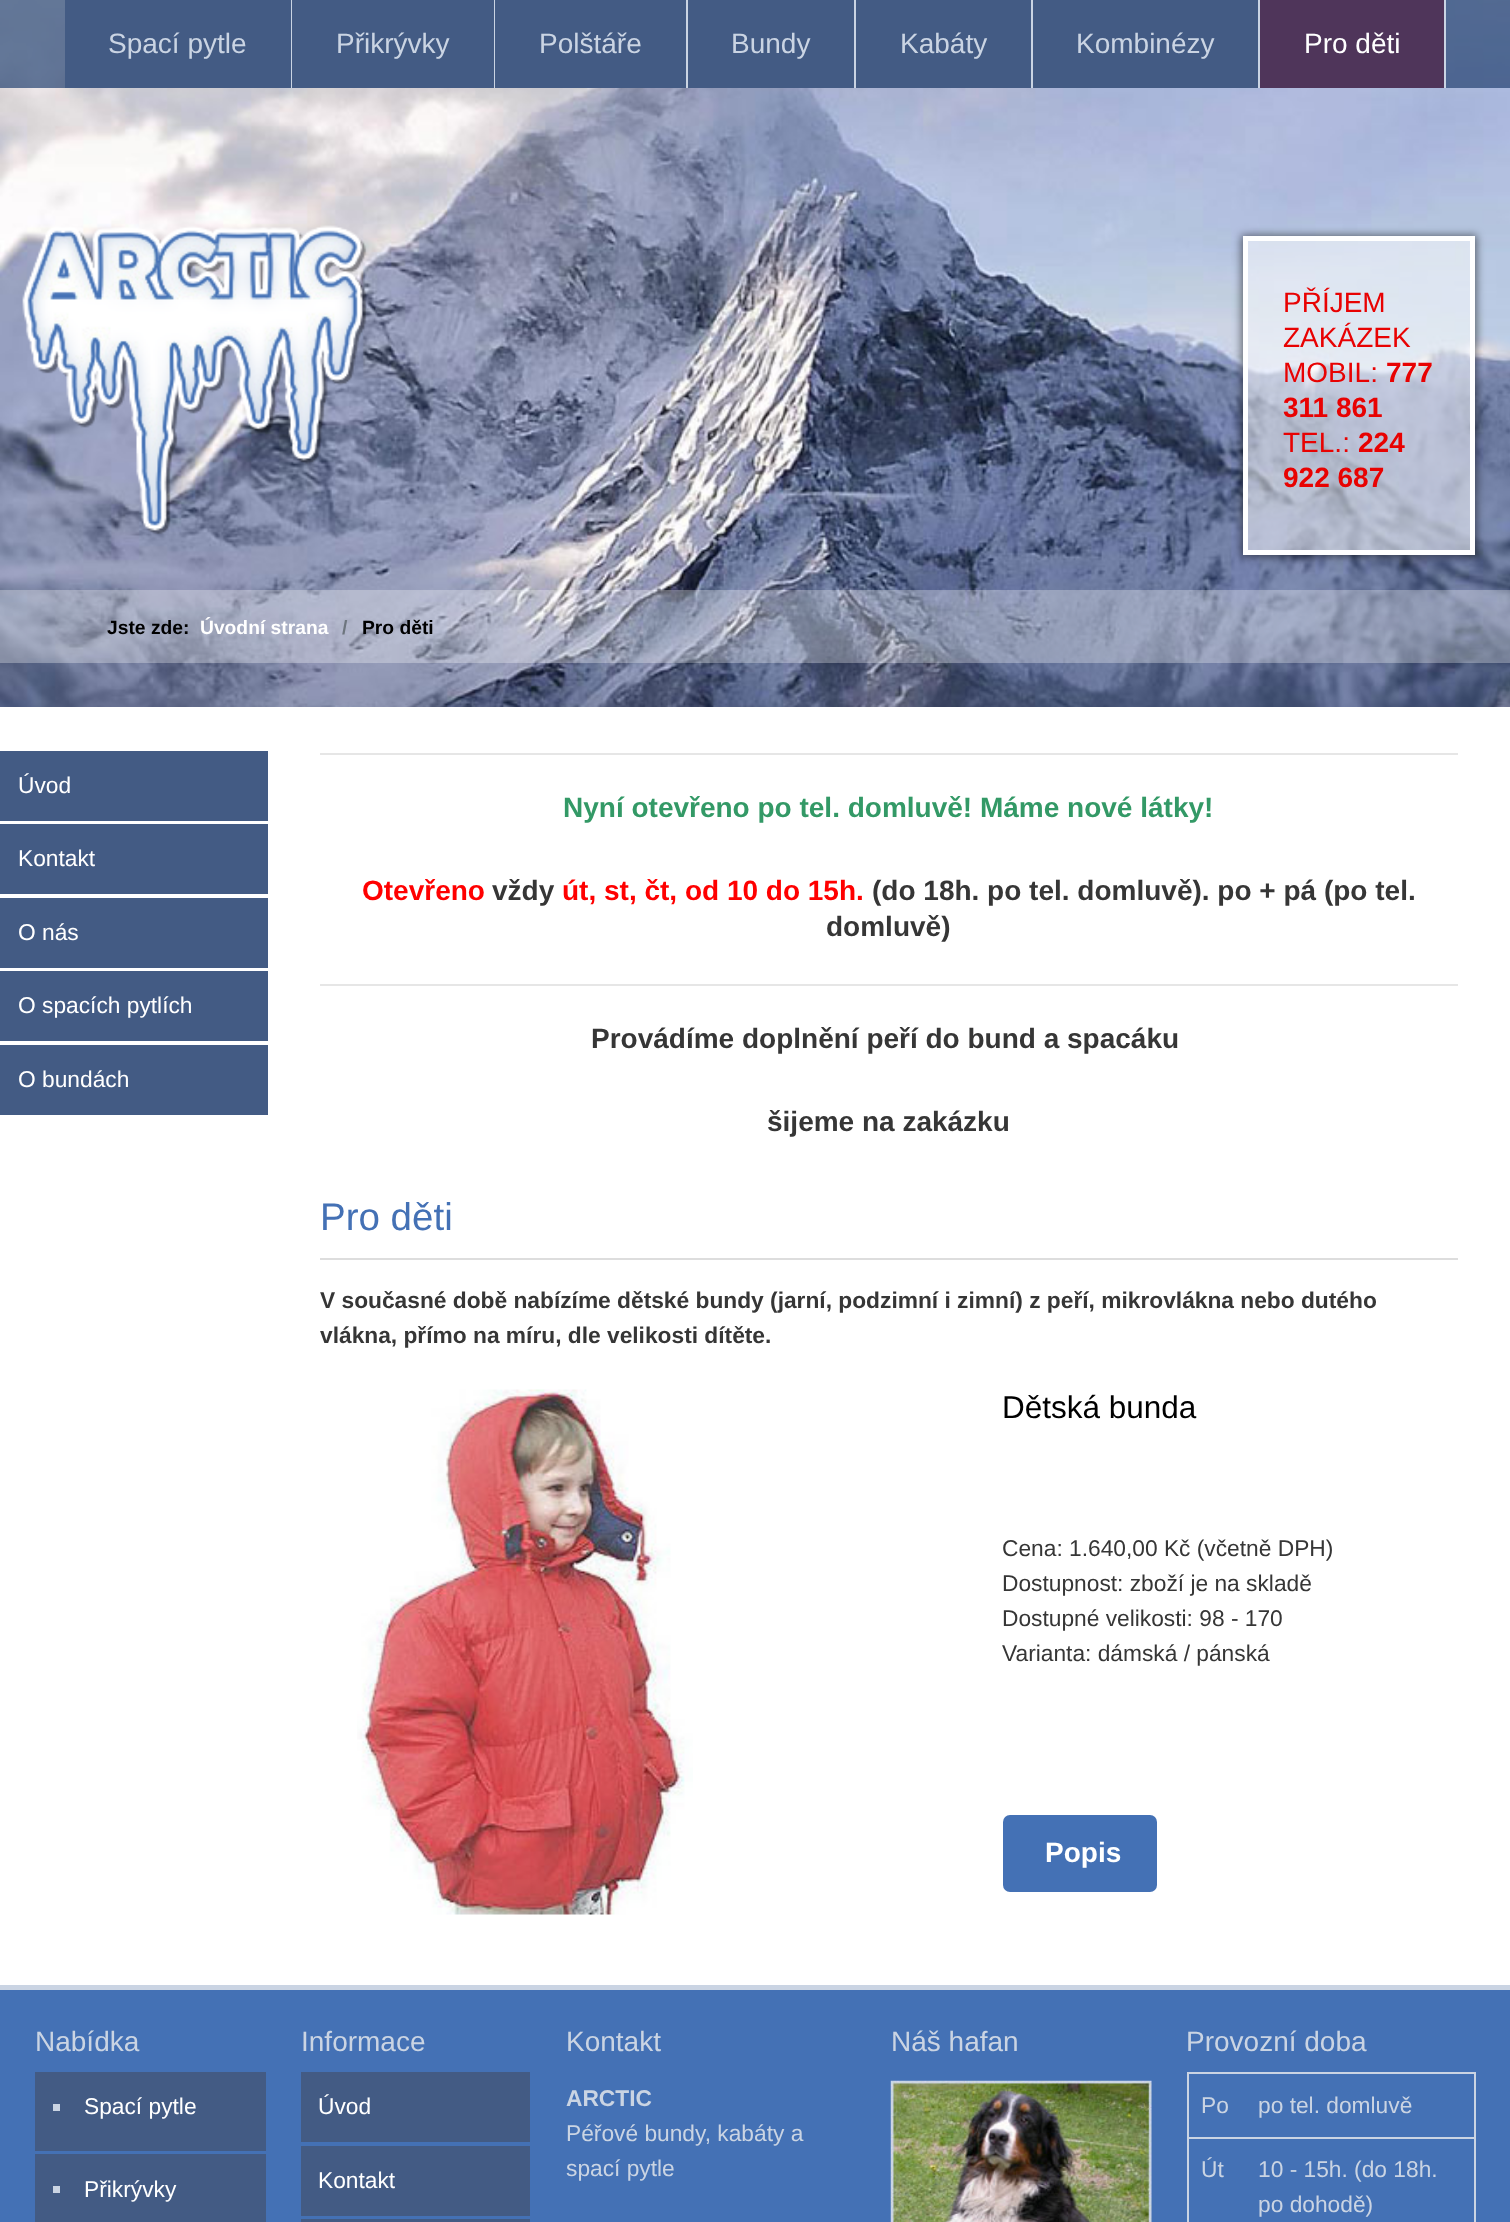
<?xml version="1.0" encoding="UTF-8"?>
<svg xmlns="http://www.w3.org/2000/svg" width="1510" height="2222">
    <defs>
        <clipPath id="clip1"><path d="M 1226 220 H 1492 V 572 H 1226 Z M 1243 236 H 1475 V 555 H 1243 Z" clip-rule="evenodd"/></clipPath>
        <filter id="blur1" x="-50%" y="-200%" width="200%" height="500%"><feGaussianBlur stdDeviation="4.5"/></filter>
    </defs>
    <rect width="100%" height="100%" fill="#FFFFFF"/>
    <image x="0" y="0" width="1510" height="707" href="img_01.png"/>
    <rect x="0" y="0" width="1510" height="88" fill="#234270" fill-opacity="0.7"/>
    <rect x="65" y="0" width="226" height="88" fill="#435B84"/>
    <rect x="291" y="0" width="1" height="88" fill="#CAD4E3"/>
    <text x="108" y="53" font-family="Liberation Sans" font-size="28" fill="#CAD4E3">Spací pytle</text>
    <rect x="292" y="0" width="202" height="88" fill="#435B84"/>
    <rect x="494" y="0" width="1" height="88" fill="#CAD4E3"/>
    <text x="336" y="53" font-family="Liberation Sans" font-size="28" fill="#CAD4E3">Přikrývky</text>
    <rect x="495" y="0" width="191" height="88" fill="#435B84"/>
    <rect x="686" y="0" width="2" height="88" fill="#CAD4E3"/>
    <text x="539" y="53" font-family="Liberation Sans" font-size="28" fill="#CAD4E3">Polštáře</text>
    <rect x="688" y="0" width="166" height="88" fill="#435B84"/>
    <rect x="854" y="0" width="2" height="88" fill="#CAD4E3"/>
    <text x="731" y="53" font-family="Liberation Sans" font-size="28" fill="#CAD4E3">Bundy</text>
    <rect x="856" y="0" width="175" height="88" fill="#435B84"/>
    <rect x="1031" y="0" width="2" height="88" fill="#CAD4E3"/>
    <text x="900" y="53" font-family="Liberation Sans" font-size="28" fill="#CAD4E3">Kabáty</text>
    <rect x="1033" y="0" width="225" height="88" fill="#435B84"/>
    <rect x="1258" y="0" width="2" height="88" fill="#CAD4E3"/>
    <text x="1076" y="53" font-family="Liberation Sans" font-size="28" fill="#CAD4E3">Kombinézy</text>
    <rect x="1260" y="0" width="184" height="88" fill="#4F355A"/>
    <rect x="1444" y="0" width="2" height="88" fill="#CAD4E3"/>
    <text x="1304" y="53" font-family="Liberation Sans" font-size="28" fill="#FFFFFF">Pro děti</text>
    <image x="22" y="225" width="345" height="310" href="img_02.png"/>
    <g clip-path="url(#clip1)">
        <rect x="1241" y="235" width="236" height="322" fill="#000000" fill-opacity="0.5" filter="url(#blur1)"/>
    </g>
    <rect x="1245.5" y="238.5" width="227" height="314" fill="#FFFFFF" fill-opacity="0.5" stroke="#FFFFFF" stroke-width="5"/>
    <text font-family="Liberation Sans" font-size="28" fill="#E80202">
        <tspan x="1283" y="312">PŘÍJEM</tspan>
        <tspan x="1283" y="347">ZAKÁZEK</tspan>
        <tspan x="1283" y="382">MOBIL:</tspan>
    </text>
    <text x="1386" y="382" font-family="Liberation Sans" font-size="28" font-weight="700" fill="#E80202">777</text>
    <text x="1283" y="417" font-family="Liberation Sans" font-size="28" font-weight="700" fill="#E80202">311 861</text>
    <text x="1283" y="452" font-family="Liberation Sans" font-size="28" fill="#E80202">TEL.:</text>
    <text x="1358" y="452" font-family="Liberation Sans" font-size="28" font-weight="700" fill="#E80202">224</text>
    <text x="1283" y="487" font-family="Liberation Sans" font-size="28" font-weight="700" fill="#E80202">922 687</text>
    <rect x="0" y="590" width="1510" height="73" fill="#FFFFFF" fill-opacity="0.3"/>
    <text x="107" y="634" font-family="Liberation Sans" font-size="19.25" font-weight="700" fill="#000000">Jste zde:</text>
    <text x="200" y="634" font-family="Liberation Sans" font-size="19.25" font-weight="700" fill="#FFFFFF">Úvodní strana</text>
    <text x="342" y="634" font-family="Liberation Sans" font-size="19.25" font-weight="700" fill="#6D757E">/</text>
    <text x="362" y="634" font-family="Liberation Sans" font-size="19.25" font-weight="700" fill="#000000">Pro děti</text>
    <rect x="0" y="751" width="268" height="70" fill="#435B84"/>
    <text x="18" y="793" font-family="Liberation Sans" font-size="22.75" fill="#FFFFFF">Úvod</text>
    <rect x="0" y="824" width="268" height="70" fill="#435B84"/>
    <text x="18" y="866" font-family="Liberation Sans" font-size="22.75" fill="#FFFFFF">Kontakt</text>
    <rect x="0" y="898" width="268" height="70" fill="#435B84"/>
    <text x="18" y="940" font-family="Liberation Sans" font-size="22.75" fill="#FFFFFF">O nás</text>
    <rect x="0" y="971" width="268" height="70" fill="#435B84"/>
    <text x="18" y="1013" font-family="Liberation Sans" font-size="22.75" fill="#FFFFFF">O spacích pytlích</text>
    <rect x="0" y="1045" width="268" height="70" fill="#435B84"/>
    <text x="18" y="1087" font-family="Liberation Sans" font-size="22.75" fill="#FFFFFF">O bundách</text>
    <rect x="320" y="753" width="1138" height="2" fill="#E6E6E6"/>
    <text x="563" y="817" font-family="Liberation Sans" font-size="28" font-weight="700" fill="#339966">Nyní otevřeno po tel. domluvě! Máme nové látky!</text>
    <text x="362" y="900" font-family="Liberation Sans" font-size="28" font-weight="700" fill="#FF0000">Otevřeno</text>
    <text x="492" y="900" font-family="Liberation Sans" font-size="28" font-weight="700" fill="#363636">vždy</text>
    <text x="562" y="900" font-family="Liberation Sans" font-size="28" font-weight="700" fill="#FF0000">út, st, čt, od 10 do 15h.</text>
    <text x="872" y="900" font-family="Liberation Sans" font-size="28" font-weight="700" fill="#363636">(do 18h. po tel. domluvě). po + pá (po tel.</text>
    <text x="826" y="936" font-family="Liberation Sans" font-size="28" font-weight="700" fill="#363636">domluvě)</text>
    <rect x="320" y="984" width="1138" height="2" fill="#E6E6E6"/>
    <text x="591" y="1048" font-family="Liberation Sans" font-size="28" font-weight="700" fill="#363636">Provádíme doplnění peří do bund a spacáku</text>
    <text x="767" y="1131" font-family="Liberation Sans" font-size="28" font-weight="700" fill="#363636">šijeme na zakázku</text>
    <rect x="320" y="1258" width="1138" height="2" fill="#DDDDDD"/>
    <text x="320" y="1230" font-family="Liberation Sans" font-size="38.5" fill="#4471B5">Pro děti</text>
    <text font-family="Liberation Sans" font-size="22.75" font-weight="700" fill="#363636">
        <tspan x="320" y="1308">V současné době nabízíme dětské bundy (jarní, podzimní i zimní) z peří, mikrovlákna nebo dutého</tspan>
        <tspan x="320" y="1343">vlákna, přímo na míru, dle velikosti dítěte.</tspan>
    </text>
    <image x="357" y="1389" width="336" height="526" href="img_03.png"/>
    <text x="1002" y="1418" font-family="Liberation Sans" font-size="31.5" fill="#000000">Dětská bunda</text>
    <text font-family="Liberation Sans" font-size="22.75" fill="#363636">
        <tspan x="1002" y="1556">Cena: 1.640,00 Kč (včetně DPH)</tspan>
        <tspan x="1002" y="1591">Dostupnost: zboží je na skladě</tspan>
        <tspan x="1002" y="1626">Dostupné velikosti: 98 - 170</tspan>
        <tspan x="1002" y="1661">Varianta: dámská / pánská</tspan>
    </text>
    <rect x="1003" y="1815" width="154" height="77" rx="7" fill="#4471B5"/>
    <text x="1045" y="1862" font-family="Liberation Sans" font-size="28" font-weight="700" fill="#FFFFFF">Popis</text>
    <rect x="0" y="1990" width="1510" height="232" fill="#4471B5"/>
    <rect x="0" y="1985" width="1510" height="5" fill="#CAD4E3"/>
    <text x="35" y="2051" font-family="Liberation Sans" font-size="28" fill="#CAD4E3">Nabídka</text>
    <rect x="35" y="2072" width="231" height="79" fill="#435B84"/>
    <rect x="53" y="2104" width="7" height="7" fill="#CAD4E3"/>
    <text x="84" y="2114" font-family="Liberation Sans" font-size="22.75" fill="#FFFFFF">Spací pytle</text>
    <rect x="35" y="2154" width="231" height="68" fill="#435B84"/>
    <rect x="53" y="2186" width="7" height="7" fill="#CAD4E3"/>
    <text x="84" y="2197" font-family="Liberation Sans" font-size="22.75" fill="#FFFFFF">Přikrývky</text>
    <text x="301" y="2051" font-family="Liberation Sans" font-size="28" fill="#CAD4E3">Informace</text>
    <rect x="301" y="2072" width="229" height="70" fill="#435B84"/>
    <text x="318" y="2114" font-family="Liberation Sans" font-size="22.75" fill="#FFFFFF">Úvod</text>
    <rect x="301" y="2146" width="229" height="70" fill="#435B84"/>
    <text x="318" y="2188" font-family="Liberation Sans" font-size="22.75" fill="#FFFFFF">Kontakt</text>
    <rect x="301" y="2219" width="229" height="3" fill="#435B84"/>
    <text x="566" y="2051" font-family="Liberation Sans" font-size="28" fill="#CAD4E3">Kontakt</text>
    <text x="566" y="2106" font-family="Liberation Sans" font-size="22.75" font-weight="700" fill="#CAD4E3">ARCTIC</text>
    <text font-family="Liberation Sans" font-size="22.75" fill="#CAD4E3">
        <tspan x="566" y="2141">Péřové bundy, kabáty a</tspan>
        <tspan x="566" y="2176">spací pytle</tspan>
    </text>
    <text x="891" y="2051" font-family="Liberation Sans" font-size="28" fill="#CAD4E3">Náš hafan</text>
    <image x="890" y="2080" width="262" height="142" href="img_04.png"/>
    <text x="1186" y="2051" font-family="Liberation Sans" font-size="28" fill="#CAD4E3">Provozní doba</text>
    <rect x="1187" y="2072" width="288" height="2" fill="#CAD4E3"/>
    <rect x="1474" y="2072" width="2" height="150" fill="#CAD4E3"/>
    <rect x="1187" y="2072" width="2" height="150" fill="#CAD4E3"/>
    <text x="1201" y="2113" font-family="Liberation Sans" font-size="22.75" fill="#CAD4E3">Po</text>
    <text x="1258" y="2113" font-family="Liberation Sans" font-size="22.75" fill="#CAD4E3">po tel. domluvě</text>
    <text x="1201" y="2177" font-family="Liberation Sans" font-size="22.75" fill="#CAD4E3">Út</text>
    <rect x="1187" y="2137" width="288" height="2" fill="#CAD4E3"/>
    <text font-family="Liberation Sans" font-size="22.75" fill="#CAD4E3">
        <tspan x="1258" y="2177">10 - 15h. (do 18h.</tspan>
        <tspan x="1258" y="2212">po dohodě)</tspan>
    </text>
</svg>
